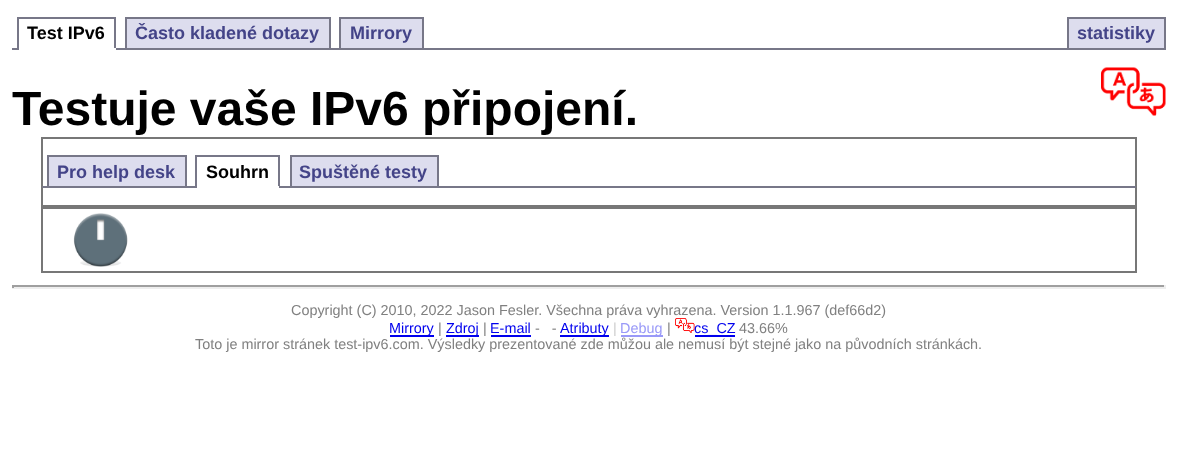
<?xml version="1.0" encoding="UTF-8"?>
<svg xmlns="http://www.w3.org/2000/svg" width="1177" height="462">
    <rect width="100%" height="100%" fill="#FFFFFF"/>
    <rect x="12" y="48" width="1154" height="2" fill="#777788"/>
    <text x="27" y="39" font-family="Liberation Sans" font-size="18" font-weight="700" fill="#000000">Test IPv6</text>
    <rect x="17" y="17" width="99" height="2" fill="#777788"/>
    <rect x="114" y="17" width="2" height="33" fill="#777788"/>
    <rect x="17" y="48" width="99" height="2" fill="#FFFFFF"/>
    <rect x="17" y="17" width="2" height="33" fill="#777788"/>
    <rect x="127" y="19" width="202" height="29" fill="#DDDDEE"/>
    <text x="135" y="39" font-family="Liberation Sans" font-size="18" font-weight="700" fill="#444488">Často kladené dotazy</text>
    <rect x="125" y="17" width="205" height="2" fill="#777788"/>
    <rect x="329" y="17" width="2" height="31" fill="#777788"/>
    <rect x="125" y="17" width="2" height="31" fill="#777788"/>
    <rect x="341" y="19" width="81" height="29" fill="#DDDDEE"/>
    <text x="350" y="39" font-family="Liberation Sans" font-size="18" font-weight="700" fill="#444488">Mirrory</text>
    <rect x="339" y="17" width="84" height="2" fill="#777788"/>
    <rect x="422" y="17" width="2" height="31" fill="#777788"/>
    <rect x="339" y="17" width="2" height="31" fill="#777788"/>
    <rect x="1069" y="19" width="95" height="29" fill="#DDDDEE"/>
    <text x="1077" y="39" font-family="Liberation Sans" font-size="18" font-weight="700" fill="#444488">statistiky</text>
    <rect x="1067" y="17" width="99" height="2" fill="#777788"/>
    <rect x="1164" y="17" width="2" height="31" fill="#777788"/>
    <rect x="1067" y="17" width="2" height="31" fill="#777788"/>
    <image x="1101" y="67" width="65" height="49" href="img_01.png"/>
    <text x="12" y="125" font-family="Liberation Sans" font-size="48" font-weight="700" fill="#000000">Testuje vaše IPv6 připojení.</text>
    <rect x="42" y="138" width="1094" height="68" fill="none" stroke="#777777" stroke-width="2"/>
    <rect x="42" y="186" width="1094" height="2" fill="#777788"/>
    <rect x="49" y="157" width="136" height="29" fill="#DDDDEE"/>
    <text x="57" y="178" font-family="Liberation Sans" font-size="18" font-weight="700" fill="#444488">Pro help desk</text>
    <rect x="47" y="155" width="139" height="2" fill="#777788"/>
    <rect x="185" y="155" width="2" height="31" fill="#777788"/>
    <rect x="47" y="155" width="2" height="31" fill="#777788"/>
    <text x="206" y="178" font-family="Liberation Sans" font-size="18" font-weight="700" fill="#000000">Souhrn</text>
    <rect x="195" y="155" width="84" height="2" fill="#777788"/>
    <rect x="278" y="155" width="2" height="33" fill="#777788"/>
    <rect x="195" y="186" width="84" height="2" fill="#FFFFFF"/>
    <rect x="195" y="155" width="2" height="33" fill="#777788"/>
    <rect x="292" y="157" width="145" height="29" fill="#DDDDEE"/>
    <text x="299" y="178" font-family="Liberation Sans" font-size="18" font-weight="700" fill="#444488">Spuštěné testy</text>
    <rect x="290" y="155" width="148" height="2" fill="#777788"/>
    <rect x="437" y="155" width="2" height="31" fill="#777788"/>
    <rect x="290" y="155" width="2" height="31" fill="#777788"/>
    <rect x="42" y="208" width="1094" height="64" fill="none" stroke="#777777" stroke-width="2"/>
    <image x="73" y="213" width="55" height="54" href="img_02.png"/>
    <rect x="12" y="285" width="1154" height="2" fill="#9F9F9F"/>
    <rect x="1164" y="285" width="2" height="3" fill="#EEEEEE"/>
    <rect x="12" y="287" width="1154" height="2" fill="#EEEEEE"/>
    <rect x="12" y="285" width="2" height="3" fill="#9F9F9F"/>
    <text x="291" y="315" font-family="Liberation Sans" font-size="14.4" fill="#808080">Copyright (C) 2010, 2022 Jason Fesler. Všechna práva vyhrazena. Version 1.1.967 (def66d2)</text>
    <rect x="390" y="335" width="44" height="2" fill="#0000EE"/>
    <text x="389" y="333" font-family="Liberation Sans" font-size="14.4" fill="#0000EE">Mirrory</text>
    <text x="438" y="333" font-family="Liberation Sans" font-size="14.4" fill="#808080">|</text>
    <rect x="446" y="335" width="33" height="2" fill="#0000EE"/>
    <text x="446" y="333" font-family="Liberation Sans" font-size="14.4" fill="#0000EE">Zdroj</text>
    <text x="483" y="333" font-family="Liberation Sans" font-size="14.4" fill="#808080">|</text>
    <text x="490" y="333" font-family="Liberation Sans" font-size="14.4" fill="#0000EE">E-mail</text>
    <rect x="491" y="335" width="40" height="2" fill="#0000EE"/>
    <text x="535" y="333" font-family="Liberation Sans" font-size="14.4" fill="#808080" xml:space="preserve">-   -</text>
    <rect x="560" y="335" width="49" height="2" fill="#0000EE"/>
    <text x="560" y="333" font-family="Liberation Sans" font-size="14.4" fill="#0000EE">Atributy</text>
    <text x="613" y="333" font-family="Liberation Sans" font-size="14.4" fill="#CCCCCC">|</text>
    <rect x="621" y="335" width="42" height="2" fill="#9999F8"/>
    <text x="620" y="333" font-family="Liberation Sans" font-size="14.4" fill="#9999F8">Debug</text>
    <text x="667" y="333" font-family="Liberation Sans" font-size="14.4" fill="#808080">|</text>
    <image x="675" y="318" width="20" height="15" href="img_03.png"/>
    <rect x="695" y="335" width="40" height="2" fill="#0000EE"/>
    <text x="694" y="333" font-family="Liberation Sans" font-size="14.4" fill="#0000EE">cs_CZ</text>
    <text x="739" y="333" font-family="Liberation Sans" font-size="14.4" fill="#808080">43.66%</text>
    <text x="195" y="349" font-family="Liberation Sans" font-size="14.4" fill="#808080">Toto je mirror stránek test-ipv6.com. Výsledky prezentované zde můžou ale nemusí být stejné jako na původních stránkách.</text>
</svg>
